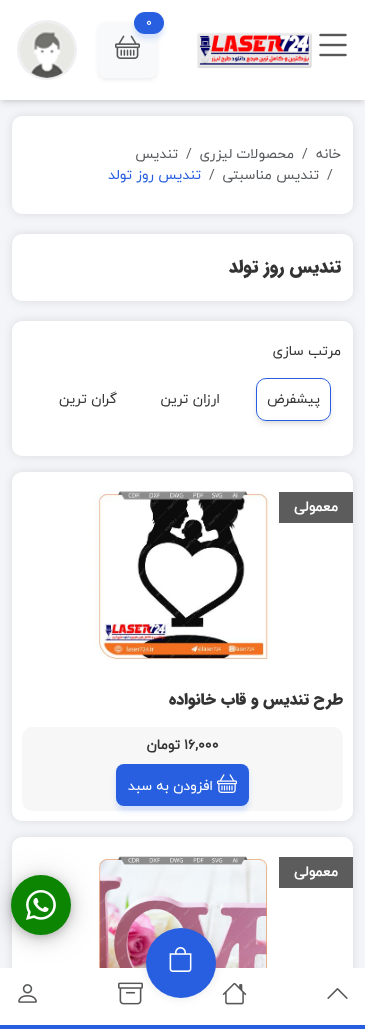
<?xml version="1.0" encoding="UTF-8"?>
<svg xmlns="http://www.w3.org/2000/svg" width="365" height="1029">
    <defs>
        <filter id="blur1" x="-50%" y="-200%" width="200%" height="500%"><feGaussianBlur stdDeviation="2"/></filter>
        <filter id="blur2" x="-50%" y="-200%" width="200%" height="500%"><feGaussianBlur stdDeviation="3"/></filter>
        <filter id="blur3" x="-50%" y="-200%" width="200%" height="500%"><feGaussianBlur stdDeviation="2.5"/></filter>
        <filter id="blur4" x="-50%" y="-200%" width="200%" height="500%"><feGaussianBlur stdDeviation="5"/></filter>
        <clipPath id="clip1"><path d="M 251 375 H 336 V 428 H 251 Z M 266 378 H 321 C 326.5 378 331 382.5 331 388 V 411 C 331 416.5 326.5 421 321 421 H 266 C 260.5 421 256 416.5 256 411 V 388 C 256 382.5 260.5 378 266 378 Z" clip-rule="evenodd"/></clipPath>
        <clipPath id="clip2"><path d="M 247 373 H 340 V 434 H 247 Z M 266 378 H 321 C 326.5 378 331 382.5 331 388 V 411 C 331 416.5 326.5 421 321 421 H 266 C 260.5 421 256 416.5 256 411 V 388 C 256 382.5 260.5 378 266 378 Z" clip-rule="evenodd"/></clipPath>
        <filter id="blur5" x="-50%" y="-200%" width="200%" height="500%"><feGaussianBlur stdDeviation="4.5"/></filter>
        <filter id="blur6" x="-50%" y="-200%" width="200%" height="500%"><feGaussianBlur stdDeviation="16"/></filter>
        <filter id="blur7" x="-50%" y="-200%" width="200%" height="500%"><feGaussianBlur stdDeviation="8.5"/></filter>
    </defs>
    <rect width="100%" height="100%" fill="#F4F5F9"/>
    <rect x="2" y="4" width="361" height="96" fill="#000000" fill-opacity="0.1" filter="url(#blur1)"/>
    <rect x="1" y="5" width="363" height="98" fill="#000000" fill-opacity="0.1" filter="url(#blur2)"/>
    <rect x="0" y="0" width="365" height="100" fill="#FFFFFF"/>
    <rect x="98" y="24" width="59" height="56" rx="8" fill="#000000" fill-opacity="0.07" filter="url(#blur1)"/>
    <rect x="98" y="22" width="59" height="56" rx="8" fill="#F8F9FA"/>
    <image x="115" y="35" width="25" height="24" href="img_01.png"/>
    <rect x="134" y="17" width="30" height="22" rx="11" fill="#407BFF" fill-opacity="0.19" filter="url(#blur3)"/>
    <rect x="134" y="12" width="30" height="22" rx="11" fill="#275FE0"/>
    <text x="146" y="26" font-family="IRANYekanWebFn" font-size="12" fill="#FFFFFF">0</text>
    <circle cx="47" cy="50" r="30" fill="#EEEFF2"/>
    <circle cx="47" cy="50" r="28" fill="#FFFFFF"/>
    <image x="19" y="22" width="56" height="56" href="img_02.png"/>
    <image x="319" y="33" width="28" height="24" href="img_03.png"/>
    <image x="197" y="32" width="115" height="37" href="img_04.png"/>
    <rect x="12" y="116" width="341" height="98" rx="10" fill="#000000" fill-opacity="0.1" filter="url(#blur4)"/>
    <rect x="12" y="116" width="341" height="98" rx="10" fill="#FFFFFF"/>
    <text x="341" y="158" font-family="IRANYekanWebFn" font-size="14" direction="rtl" fill="#595C5F">خانه</text>
    <text x="302" y="158" font-family="IRANYekanWebFn" font-size="14" fill="#595C5F">/</text>
    <text x="294" y="158" font-family="IRANYekanWebFn" font-size="14" direction="rtl" fill="#595C5F">محصولات لیزری</text>
    <text x="186" y="158" font-family="IRANYekanWebFn" font-size="14" fill="#595C5F">/</text>
    <text x="178" y="158" font-family="IRANYekanWebFn" font-size="14" direction="rtl" fill="#595C5F">تندیس</text>
    <text x="327" y="179" font-family="IRANYekanWebFn" font-size="14" fill="#595C5F">/</text>
    <text x="319" y="179" font-family="IRANYekanWebFn" font-size="14" direction="rtl" fill="#595C5F">تندیس مناسبتی</text>
    <text x="209" y="179" font-family="IRANYekanWebFn" font-size="14" fill="#595C5F">/</text>
    <text x="201" y="179" font-family="IRANYekanWebFn" font-size="14" direction="rtl" fill="#275FE0">تندیس روز تولد</text>
    <rect x="12" y="234" width="341" height="67" rx="10" fill="#000000" fill-opacity="0.1" filter="url(#blur4)"/>
    <rect x="12" y="234" width="341" height="67" rx="10" fill="#FFFFFF"/>
    <text x="341" y="272" font-family="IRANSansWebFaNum" font-size="18" font-weight="900" direction="rtl" fill="#333333">تندیس روز تولد</text>
    <rect x="12" y="321" width="341" height="135" rx="10" fill="#000000" fill-opacity="0.1" filter="url(#blur4)"/>
    <rect x="12" y="321" width="341" height="135" rx="10" fill="#FFFFFF"/>
    <text x="341" y="355" font-family="IRANYekanWebFn" font-size="14" direction="rtl" fill="#333333">مرتب سازی</text>
    <g clip-path="url(#clip1)">
        <rect x="258" y="382" width="71" height="39" rx="8" fill="#000000" fill-opacity="0.1" filter="url(#blur1)"/>
    </g>
    <g clip-path="url(#clip2)">
        <rect x="257" y="383" width="73" height="41" rx="9" fill="#000000" fill-opacity="0.1" filter="url(#blur2)"/>
    </g>
    <rect x="256.5" y="378.5" width="74" height="42" rx="9.5" fill="none" stroke="#275FE0"/>
    <text x="320" y="403" font-family="IRANYekanWebFn" font-size="14" direction="rtl" fill="#333333">پیشفرض</text>
    <text x="220" y="403" font-family="IRANYekanWebFn" font-size="14" direction="rtl" fill="#333333">ارزان ترین</text>
    <text x="117" y="403" font-family="IRANYekanWebFn" font-size="14" direction="rtl" fill="#333333">گران ترین</text>
    <rect x="12" y="472" width="341" height="349" rx="10" fill="#000000" fill-opacity="0.1" filter="url(#blur4)"/>
    <rect x="12" y="472" width="341" height="349" rx="10" fill="#FFFFFF"/>
    <rect x="279" y="492" width="74" height="31" fill="#5C5C5C"/>
    <text x="338" y="511" font-family="IRANYekanWebFn" font-size="14" font-weight="700" direction="rtl" fill="#FFFFFF">معمولی</text>
    <image x="93" y="491" width="177" height="169" href="img_05.png"/>
    <text x="343" y="704" font-family="IRANSansWebFaNum" font-size="16" font-weight="900" direction="rtl" fill="#333333">طرح تندیس و قاب خانواده</text>
    <rect x="22" y="727" width="321" height="84" rx="10" fill="#F7F7F7"/>
    <text x="184" y="749" font-family="IRANYekanWebFn" font-size="14" font-weight="700" fill="#333333">16,000</text>
    <text x="180" y="749" font-family="IRANYekanWebFn" font-size="14" font-weight="700" direction="rtl" fill="#333333">تومان</text>
    <rect x="116" y="769" width="133" height="42" rx="8" fill="#407BFF" fill-opacity="0.19" filter="url(#blur3)"/>
    <rect x="116" y="764" width="133" height="42" rx="8" fill="#275FE0"/>
    <image x="217" y="774" width="20" height="19" href="img_06.png"/>
    <text x="213" y="790" font-family="IRANYekanWebFn" font-size="14" direction="rtl" fill="#FFFFFF">افزودن به سبد</text>
    <rect x="12" y="837" width="341" height="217" rx="10" fill="#000000" fill-opacity="0.1" filter="url(#blur4)"/>
    <rect x="12" y="837" width="341" height="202" rx="10" fill="#FFFFFF"/>
    <rect x="279" y="857" width="74" height="31" fill="#5C5C5C"/>
    <text x="338" y="876" font-family="IRANYekanWebFn" font-size="14" font-weight="700" direction="rtl" fill="#FFFFFF">معمولی</text>
    <image x="98" y="856" width="170" height="112" href="img_07.png"/>
    <rect x="12" y="878" width="58" height="58" rx="29" fill="#000000" fill-opacity="0.2" filter="url(#blur5)"/>
    <rect x="0" y="968" width="365" height="57" fill="#FFFFFF"/>
    <image x="118" y="982" width="25" height="23" href="img_12.png"/>
    <image x="18" y="984" width="19" height="19" href="img_13.png"/>
    <rect x="11" y="876" width="60" height="60" rx="30" fill="#000000" fill-opacity="0.12" filter="url(#blur6)"/>
    <rect x="11" y="879" width="60" height="60" rx="30" fill="#000000" fill-opacity="0.14" filter="url(#blur7)"/>
    <circle cx="41" cy="905" r="30" fill="#0B8502"/>
    <image x="26" y="890" width="30" height="30" href="img_08.png"/>
    <rect x="0" y="1025" width="365" height="4" fill="#275FE0"/>
    <image x="222" y="982" width="25" height="23" href="img_11.png"/>
    <rect x="146" y="928" width="70" height="70" rx="35" fill="#000000" fill-opacity="0.1" filter="url(#blur4)"/>
    <circle cx="181" cy="963" r="35" fill="#275FE0"/>
    <image x="169" y="947" width="23" height="25" href="img_09.png"/>
    <image x="327" y="988" width="21" height="11" href="img_10.png"/>
</svg>
